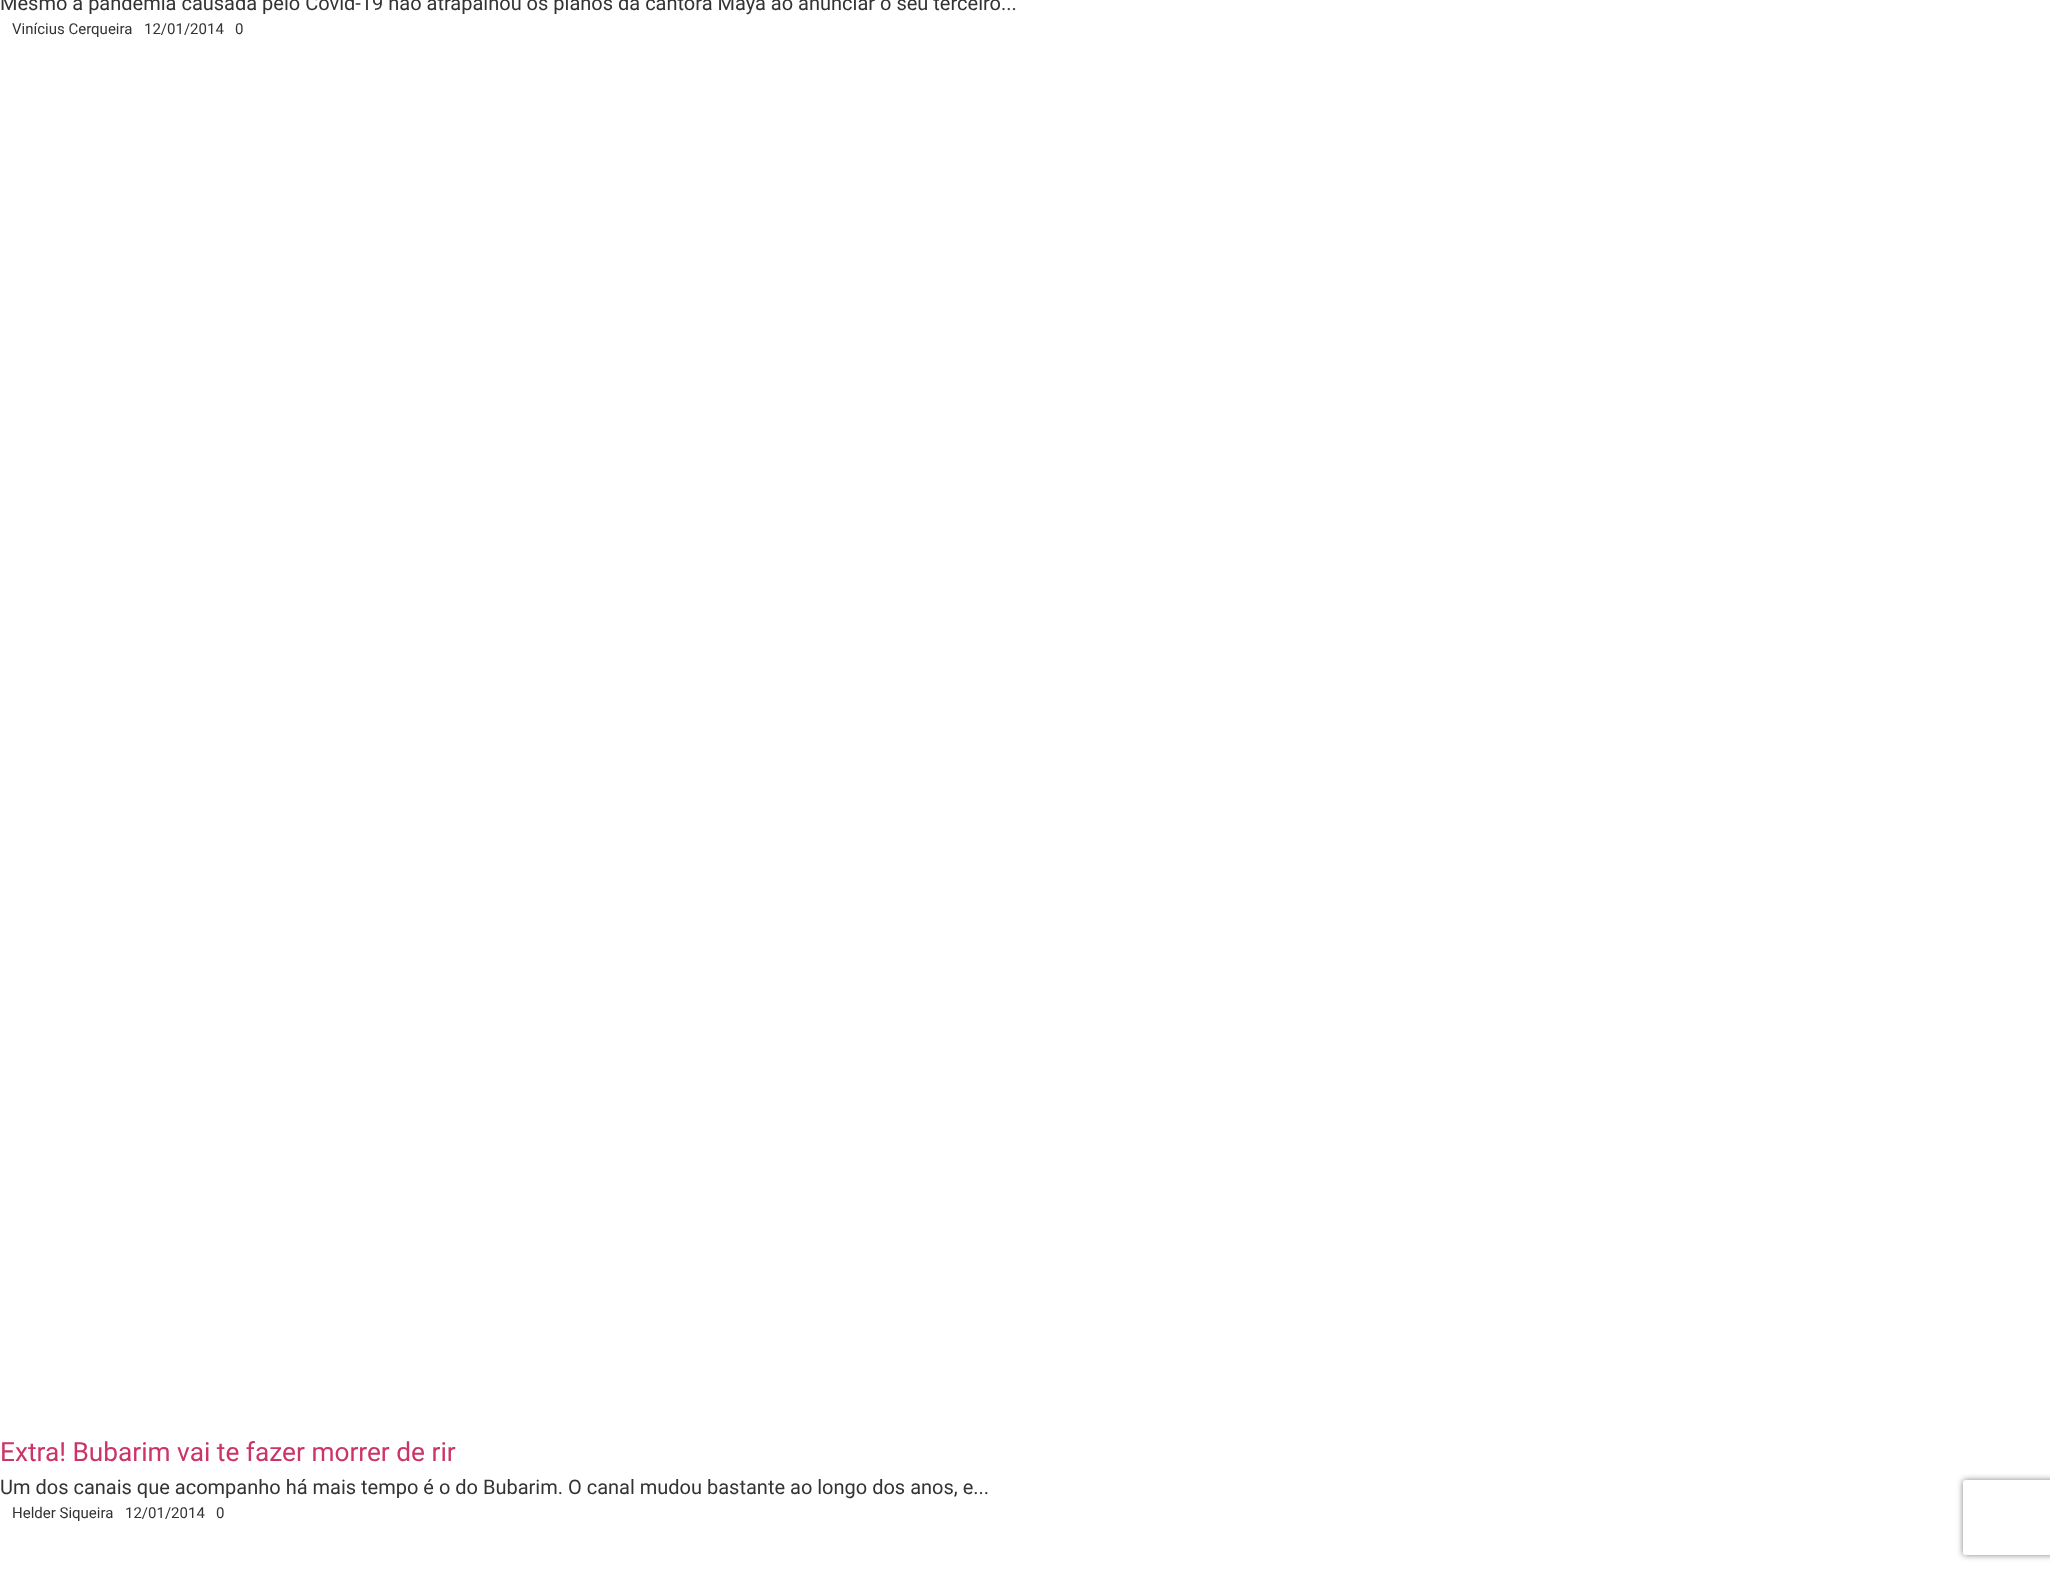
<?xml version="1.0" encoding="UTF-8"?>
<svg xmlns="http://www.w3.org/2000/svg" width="2050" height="1572">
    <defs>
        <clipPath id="clip1"><path d="M 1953 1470 H 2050 V 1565 H 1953 Z M 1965.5 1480 H 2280.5 C 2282 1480 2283 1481 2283 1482.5 V 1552.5 C 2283 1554 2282 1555 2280.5 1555 H 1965.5 C 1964 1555 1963 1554 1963 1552.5 V 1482.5 C 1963 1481 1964 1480 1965.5 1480 Z" clip-rule="evenodd"/></clipPath>
        <filter id="blur1" x="-50%" y="-200%" width="200%" height="500%"><feGaussianBlur stdDeviation="3"/></filter>
    </defs>
    <rect width="100%" height="100%" fill="#FFFFFF"/>
    <text x="0" y="10" font-family="Roboto" font-size="20" fill="#333333">Mesmo a pandemia causada pelo Covid-19 não atrapalhou os planos da cantora Maya ao anunciar o seu terceiro...</text>
    <text x="12" y="34" font-family="Roboto" font-size="15" fill="#333333">Vinícius Cerqueira</text>
    <text x="144" y="34" font-family="Roboto" font-size="15" fill="#333333">12/01/2014</text>
    <text x="235" y="34" font-family="Roboto" font-size="15" fill="#333333">0</text>
    <text x="0" y="1461" font-family="Roboto" font-size="26.25" fill="#CC3366">Extra! Bubarim vai te fazer morrer de rir</text>
    <text x="0" y="1494" font-family="Roboto" font-size="20" fill="#333333">Um dos canais que acompanho há mais tempo é o do Bubarim. O canal mudou bastante ao longo dos anos, e...</text>
    <text x="12" y="1518" font-family="Roboto" font-size="15" fill="#333333">Helder Siqueira</text>
    <text x="125" y="1518" font-family="Roboto" font-size="15" fill="#333333">12/01/2014</text>
    <text x="216" y="1518" font-family="Roboto" font-size="15" fill="#333333">0</text>
    <g clip-path="url(#clip1)">
        <rect x="1963" y="1480" width="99" height="75" rx="2.5" fill="#808080" filter="url(#blur1)"/>
    </g>
</svg>
